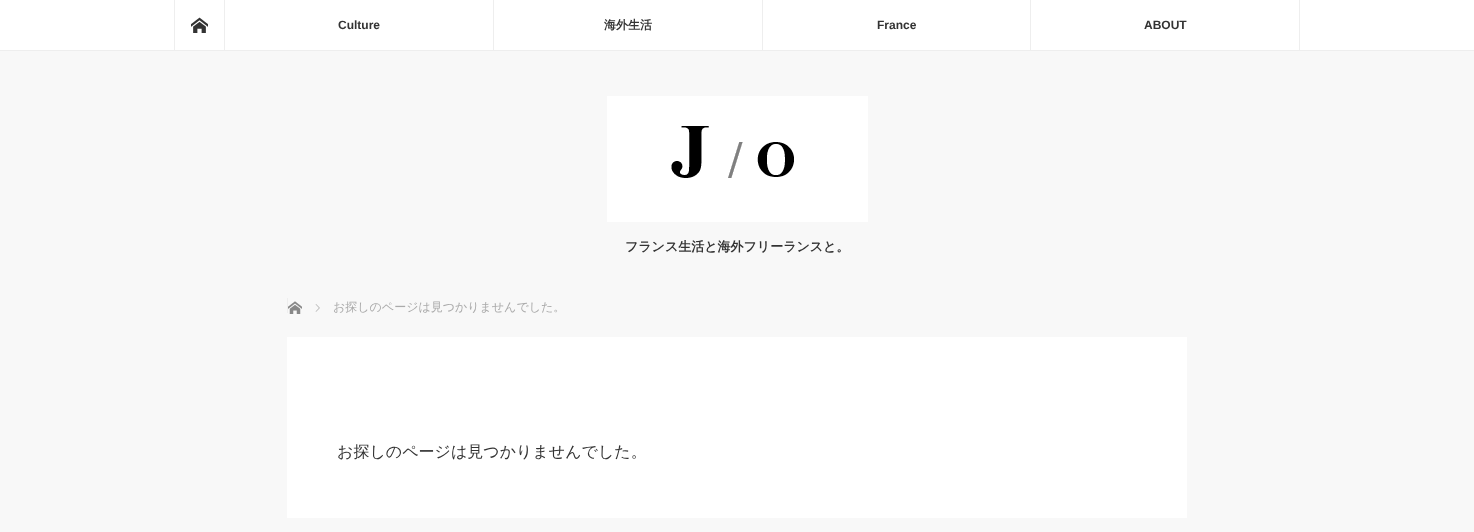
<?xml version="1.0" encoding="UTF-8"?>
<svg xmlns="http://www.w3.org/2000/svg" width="1474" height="532">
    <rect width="100%" height="100%" fill="#F8F8F8"/>
    <rect x="0" y="0" width="1474" height="50" fill="#FFFFFF"/>
    <rect x="0" y="50" width="1474" height="1" fill="#EEEEEE"/>
    <rect x="1299" y="0" width="1" height="50" fill="#EEEEEE"/>
    <rect x="174" y="0" width="1" height="50" fill="#EEEEEE"/>
    <image x="191" y="17" width="17" height="16" href="img_01.png"/>
    <rect x="224" y="0" width="1" height="50" fill="#EEEEEE"/>
    <text x="338" y="29" font-family="Liberation Sans" font-size="12" font-weight="700" fill="#333333">Culture</text>
    <rect x="493" y="0" width="1" height="50" fill="#EEEEEE"/>
    <text x="604" y="29" font-family="WenQuanYi Zen Hei" font-size="12" font-weight="700" fill="#333333">海外生活</text>
    <rect x="762" y="0" width="1" height="50" fill="#EEEEEE"/>
    <text x="877" y="29" font-family="Liberation Sans" font-size="12" font-weight="700" fill="#333333">France</text>
    <rect x="1030" y="0" width="1" height="50" fill="#EEEEEE"/>
    <text x="1144" y="29" font-family="Liberation Sans" font-size="12" font-weight="700" fill="#333333">ABOUT</text>
    <image x="607" y="96" width="261" height="126" href="img_02.png"/>
    <text x="625" y="251" font-family="WenQuanYi Zen Hei" font-size="13" font-weight="700" fill="#333333">フランス生活と海外フリーランスと。</text>
    <rect x="287" y="298" width="1" height="15" fill="#EEEEEE"/>
    <image x="288" y="301" width="14" height="13" href="img_03.png"/>
    <image x="315" y="304" width="5" height="8" href="img_04.png"/>
    <text x="333" y="311" font-family="WenQuanYi Zen Hei" font-size="12" font-weight="500" fill="#AAAAAA">お探しのページは見つかりませんでした。</text>
    <rect x="287" y="337" width="900" height="181" fill="#FFFFFF"/>
    <text x="337" y="457" font-family="WenQuanYi Zen Hei" font-size="16" font-weight="500" fill="#333333">お探しのページは見つかりませんでした。</text>
</svg>
